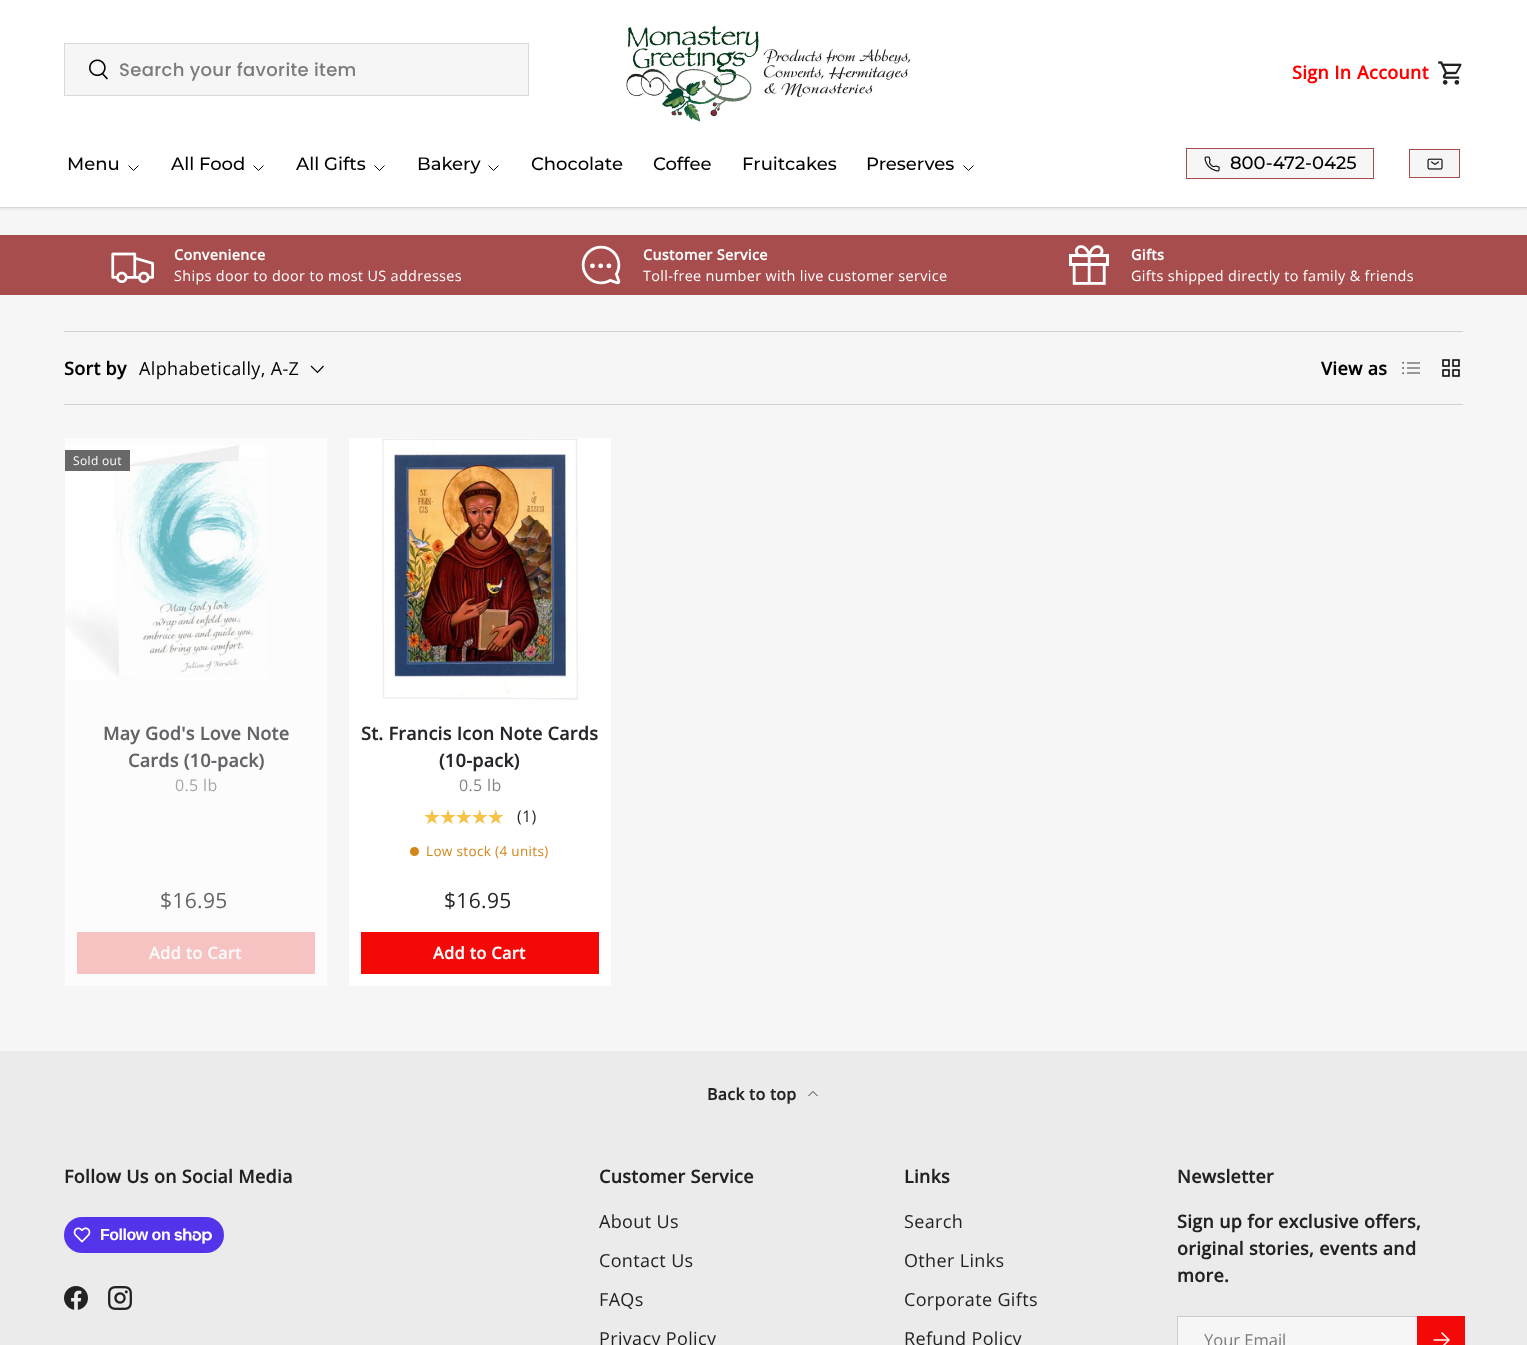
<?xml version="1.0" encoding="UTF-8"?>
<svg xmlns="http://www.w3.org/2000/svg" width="1527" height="1345">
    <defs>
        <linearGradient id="g1" gradientUnits="userSpaceOnUse" x1="423" y1="817" x2="505" y2="817"><stop offset="1" stop-color="#F6C347"/><stop offset="1" stop-color="#FDF3DA"/></linearGradient>
        <filter id="blur1" x="-50%" y="-200%" width="200%" height="500%"><feGaussianBlur stdDeviation="1.5"/></filter>
        <linearGradient id="g2" gradientUnits="userSpaceOnUse" x1="828" y1="97" x2="1360" y2="230"><stop offset="0.6" stop-color="#D9D9D9"/><stop offset="0.6" stop-color="#F6F6F6"/><stop offset="1" stop-color="#F6F6F6"/></linearGradient>
        <linearGradient id="g3" gradientUnits="userSpaceOnUse" x1="1313" y1="145" x2="1458" y2="182"><stop offset="0.6" stop-color="#D9D9D9"/><stop offset="0.6" stop-color="#F6F6F6"/><stop offset="1" stop-color="#F6F6F6"/></linearGradient>
        <linearGradient id="g4" gradientUnits="userSpaceOnUse" x1="-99" y1="868" x2="583" y2="1038"><stop offset="0.6" stop-color="#F83C3C"/><stop offset="0.6" stop-color="#F50808"/><stop offset="1" stop-color="#F50808"/></linearGradient>
        <linearGradient id="g5" gradientUnits="userSpaceOnUse" x1="1320" y1="1322" x2="1466" y2="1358"><stop offset="0.6" stop-color="#F83C3C"/><stop offset="0.6" stop-color="#F50808"/><stop offset="1" stop-color="#F50808"/></linearGradient>
    </defs>
    <rect width="100%" height="100%" fill="#F6F6F6"/>
    <rect x="-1" y="-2" width="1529" height="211" fill="#000000" fill-opacity="0.08" filter="url(#blur1)"/>
    <rect x="0" y="0" width="1527" height="207" fill="#FFFFFF"/>
    <rect x="64.5" y="43.5" width="464" height="52" fill="none" stroke="#D9D9D9"/>
    <rect x="65" y="44" width="463" height="51" fill="#F6F6F6"/>
    <image x="89" y="59" width="19" height="21" href="img_01.png"/>
    <text x="119" y="76" font-family="Poppins" font-size="18" font-weight="500" letter-spacing="0.35" fill="#7B7B7B">Search your favorite item</text>
    <image x="626" y="25" width="285" height="98" href="img_02.png"/>
    <text x="1292" y="79" font-family="Open Sans" font-size="18" font-weight="700" letter-spacing="0.35" fill="#FF0000">Sign In</text>
    <text x="1357" y="79" font-family="Open Sans" font-size="18" font-weight="700" letter-spacing="0.35" fill="#FF0000">Account</text>
    <image x="1438" y="61" width="24" height="24" href="img_03.png"/>
    <text x="67" y="170" font-family="Montserrat" font-size="18" font-weight="500" fill="#000000">Menu</text>
    <path d="M 138.5 165.5 L 133.5 170.5 L 128.5 165.5" fill="none" stroke="#000000"/>
    <text x="171" y="170" font-family="Montserrat" font-size="18" font-weight="500" fill="#000000">All Food</text>
    <path d="M 263.5 165.5 L 258.5 170.5 L 253.5 165.5" fill="none" stroke="#000000"/>
    <text x="296" y="170" font-family="Montserrat" font-size="18" font-weight="500" fill="#000000">All Gifts</text>
    <path d="M 384.5 165.5 L 379.5 170.5 L 374.5 165.5" fill="none" stroke="#000000"/>
    <text x="417" y="170" font-family="Montserrat" font-size="18" font-weight="500" fill="#000000">Bakery</text>
    <path d="M 498.5 165.5 L 493.5 170.5 L 488.5 165.5" fill="none" stroke="#000000"/>
    <text x="531" y="170" font-family="Montserrat" font-size="18" font-weight="500" fill="#000000">Chocolate</text>
    <text x="653" y="170" font-family="Montserrat" font-size="18" font-weight="500" fill="#000000">Coffee</text>
    <text x="742" y="170" font-family="Montserrat" font-size="18" font-weight="500" fill="#000000">Fruitcakes</text>
    <text x="866" y="170" font-family="Montserrat" font-size="18" font-weight="500" fill="#000000">Preserves</text>
    <path d="M 973.5 165.5 L 968.5 170.5 L 963.5 165.5" fill="none" stroke="#000000"/>
    <rect x="1187" y="149" width="186" height="29" fill="url(#g2)"/>
    <rect x="1186.5" y="148.5" width="187" height="30" fill="none" stroke="#A84D4D"/>
    <image x="1204" y="156" width="16" height="16" href="img_04.png"/>
    <text x="1230" y="169" font-family="Montserrat" font-size="18" font-weight="500" fill="#000000">800-472-0425</text>
    <rect x="1410" y="150" width="49" height="27" fill="url(#g3)"/>
    <rect x="1409.5" y="149.5" width="50" height="28" fill="none" stroke="#A84D4D"/>
    <image x="1427" y="158" width="16" height="12" href="img_05.png"/>
    <rect x="0" y="207" width="1527" height="1" fill="#D9D9D9"/>
    <rect x="0" y="235" width="1527" height="60" fill="#A84D4D"/>
    <image x="111" y="252" width="43" height="31" href="img_06.png"/>
    <text x="174" y="260" font-family="Open Sans" font-size="14.4" font-weight="700" letter-spacing="0.35" fill="#FFFFFF">Convenience</text>
    <text x="174" y="281" font-family="Open Sans" font-size="14.4" letter-spacing="0.35" fill="#FFFFFF">Ships door to door to most US addresses</text>
    <image x="581" y="245" width="40" height="40" href="img_07.png"/>
    <text x="643" y="260" font-family="Open Sans" font-size="14.4" font-weight="700" letter-spacing="0.35" fill="#FFFFFF">Customer Service</text>
    <text x="643" y="281" font-family="Open Sans" font-size="14.4" letter-spacing="0.35" fill="#FFFFFF">Toll-free number with live customer service</text>
    <image x="1069" y="245" width="40" height="40" href="img_08.png"/>
    <text x="1131" y="260" font-family="Open Sans" font-size="14.4" font-weight="700" letter-spacing="0.35" fill="#FFFFFF">Gifts</text>
    <text x="1131" y="281" font-family="Open Sans" font-size="14.4" letter-spacing="0.35" fill="#FFFFFF">Gifts shipped directly to family &amp; friends</text>
    <rect x="64" y="331" width="1399" height="1" fill="#D1D1D1"/>
    <rect x="64" y="404" width="1399" height="1" fill="#D1D1D1"/>
    <text x="64" y="375" font-family="Open Sans" font-size="18" font-weight="700" letter-spacing="0.35" fill="#000000">Sort by</text>
    <text x="139" y="375" font-family="Open Sans" font-size="18" letter-spacing="0.35" fill="#000000">Alphabetically, A-Z</text>
    <path d="M 323.5 366 L 317.5 372.5 L 311 366" fill="none" stroke="#000000" stroke-width="1.2"/>
    <text x="1321" y="375" font-family="Open Sans" font-size="18" font-weight="700" letter-spacing="0.35" fill="#000000">View as</text>
    <image x="1402" y="361" width="18" height="14" href="img_09.png"/>
    <image x="1442" y="359" width="18" height="18" href="img_10.png"/>
    <rect x="65" y="438" width="262" height="548" fill="#FCFCFC"/>
    <image x="65" y="445" width="203" height="235" href="img_11.png"/>
    <rect x="65" y="450" width="65" height="21" fill="#676867"/>
    <text x="73" y="465" font-family="Open Sans" font-size="12" letter-spacing="0.35" fill="#FFFFFF">Sold out</text>
    <text x="103" y="740" font-family="Open Sans" font-size="18" font-weight="700" letter-spacing="0.35" fill="#646468">May God's Love Note</text>
    <text x="128" y="767" font-family="Open Sans" font-size="18" font-weight="700" letter-spacing="0.35" fill="#646468">Cards (10-pack)</text>
    <text x="175" y="791" font-family="Open Sans" font-size="16" letter-spacing="0.35" fill="#A7A7A8">0.5 lb</text>
    <text x="160" y="908" font-family="Open Sans" font-size="21" letter-spacing="0.35" fill="#646468">$16.95</text>
    <rect x="77" y="932" width="238" height="42" fill="#F7C2C2"/>
    <text x="149" y="959" font-family="Open Sans" font-size="16.5" font-weight="700" letter-spacing="0.35" fill="#F9F9F9">Add to Cart</text>
    <rect x="349" y="438" width="262" height="548" fill="#FFFFFF"/>
    <image x="382" y="438" width="196" height="262" href="img_12.png"/>
    <text x="361" y="740" font-family="Open Sans" font-size="18" font-weight="700" letter-spacing="0.35" fill="#26262B">St. Francis Icon Note Cards</text>
    <text x="439" y="767" font-family="Open Sans" font-size="18" font-weight="700" letter-spacing="0.35" fill="#26262B">(10-pack)</text>
    <text x="459" y="791" font-family="Open Sans" font-size="16" letter-spacing="0.35" fill="#858588">0.5 lb</text>
    <text x="423" y="824" font-family="DejaVu Sans" font-size="20" letter-spacing="-2" fill="url(#g1)">★★★★★</text>
    <text x="517" y="822" font-family="Open Sans" font-size="16" letter-spacing="0.35" fill="#26262B">(1)</text>
    <circle cx="414.5" cy="851.5" r="4.5" fill="#D2861A"/>
    <text x="426" y="856" font-family="Open Sans" font-size="13.5" letter-spacing="0.35" fill="#D2861A">Low stock (4 units)</text>
    <text x="444" y="908" font-family="Open Sans" font-size="21" letter-spacing="0.35" fill="#26262B">$16.95</text>
    <rect x="361" y="932" width="238" height="42" fill="url(#g4)"/>
    <text x="433" y="959" font-family="Open Sans" font-size="16.5" font-weight="700" letter-spacing="0.35" fill="#FFFFFF">Add to Cart</text>
    <rect x="0" y="1051" width="1527" height="294" fill="#EBEBEB"/>
    <text x="707" y="1100" font-family="Open Sans" font-size="16" font-weight="700" letter-spacing="0.35" fill="#222222">Back to top</text>
    <path d="M 808.5 1096 L 813 1091.5 L 817.5 1096" fill="none" stroke="#222222" stroke-width="0.9"/>
    <text x="64" y="1183" font-family="Open Sans" font-size="18" font-weight="700" letter-spacing="0.35" fill="#222222">Follow Us on Social Media</text>
    <rect x="64" y="1217" width="160" height="36" rx="18" fill="#5433EB"/>
    <image x="73" y="1227" width="18" height="16" href="img_13.png"/>
    <text x="100" y="1240" font-family="Liberation Sans" font-size="16" font-weight="700" letter-spacing="-0.5" fill="#FFFFFF">Follow on</text>
    <image x="174" y="1228" width="38" height="16" href="img_14.png"/>
    <image x="64" y="1286" width="24" height="24" href="img_15.png"/>
    <image x="108" y="1286" width="24" height="24" href="img_16.png"/>
    <text x="599" y="1183" font-family="Open Sans" font-size="18" font-weight="700" letter-spacing="0.35" fill="#222222">Customer Service</text>
    <text x="599" y="1228" font-family="Open Sans" font-size="18" letter-spacing="0.35" fill="#222222">About Us</text>
    <text x="599" y="1267" font-family="Open Sans" font-size="18" letter-spacing="0.35" fill="#222222">Contact Us</text>
    <text x="599" y="1306" font-family="Open Sans" font-size="18" letter-spacing="0.35" fill="#222222">FAQs</text>
    <text x="599" y="1345" font-family="Open Sans" font-size="18" letter-spacing="0.35" fill="#222222">Privacy Policy</text>
    <text x="904" y="1183" font-family="Open Sans" font-size="18" font-weight="700" letter-spacing="0.35" fill="#222222">Links</text>
    <text x="904" y="1228" font-family="Open Sans" font-size="18" letter-spacing="0.35" fill="#222222">Search</text>
    <text x="904" y="1267" font-family="Open Sans" font-size="18" letter-spacing="0.35" fill="#222222">Other Links</text>
    <text x="904" y="1306" font-family="Open Sans" font-size="18" letter-spacing="0.35" fill="#222222">Corporate Gifts</text>
    <text x="904" y="1345" font-family="Open Sans" font-size="18" letter-spacing="0.35" fill="#222222">Refund Policy</text>
    <text x="1177" y="1183" font-family="Open Sans" font-size="18" font-weight="700" letter-spacing="0.35" fill="#222222">Newsletter</text>
    <text font-family="Open Sans" font-size="18" font-weight="700" letter-spacing="0.35" fill="#222222">
        <tspan x="1177" y="1228">Sign up for exclusive offers,</tspan>
        <tspan x="1177" y="1255">original stories, events and</tspan>
        <tspan x="1177" y="1282">more.</tspan>
    </text>
    <rect x="1178" y="1317" width="239" height="28" fill="#F6F6F6"/>
    <rect x="1177.5" y="1316.5" width="285" height="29" fill="none" stroke="#CCCCCC"/>
    <text x="1204" y="1346" font-family="Open Sans" font-size="16.5" fill="#7B7B7B">Your Email</text>
    <rect x="1417" y="1316" width="48" height="29" fill="url(#g5)"/>
    <path d="M 1433.5 1340 H 1448.5 M 1441.5 1332.5 L 1449 1340 L 1441.5 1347.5" fill="none" stroke="#FFFFFF" stroke-width="1.5"/>
</svg>
